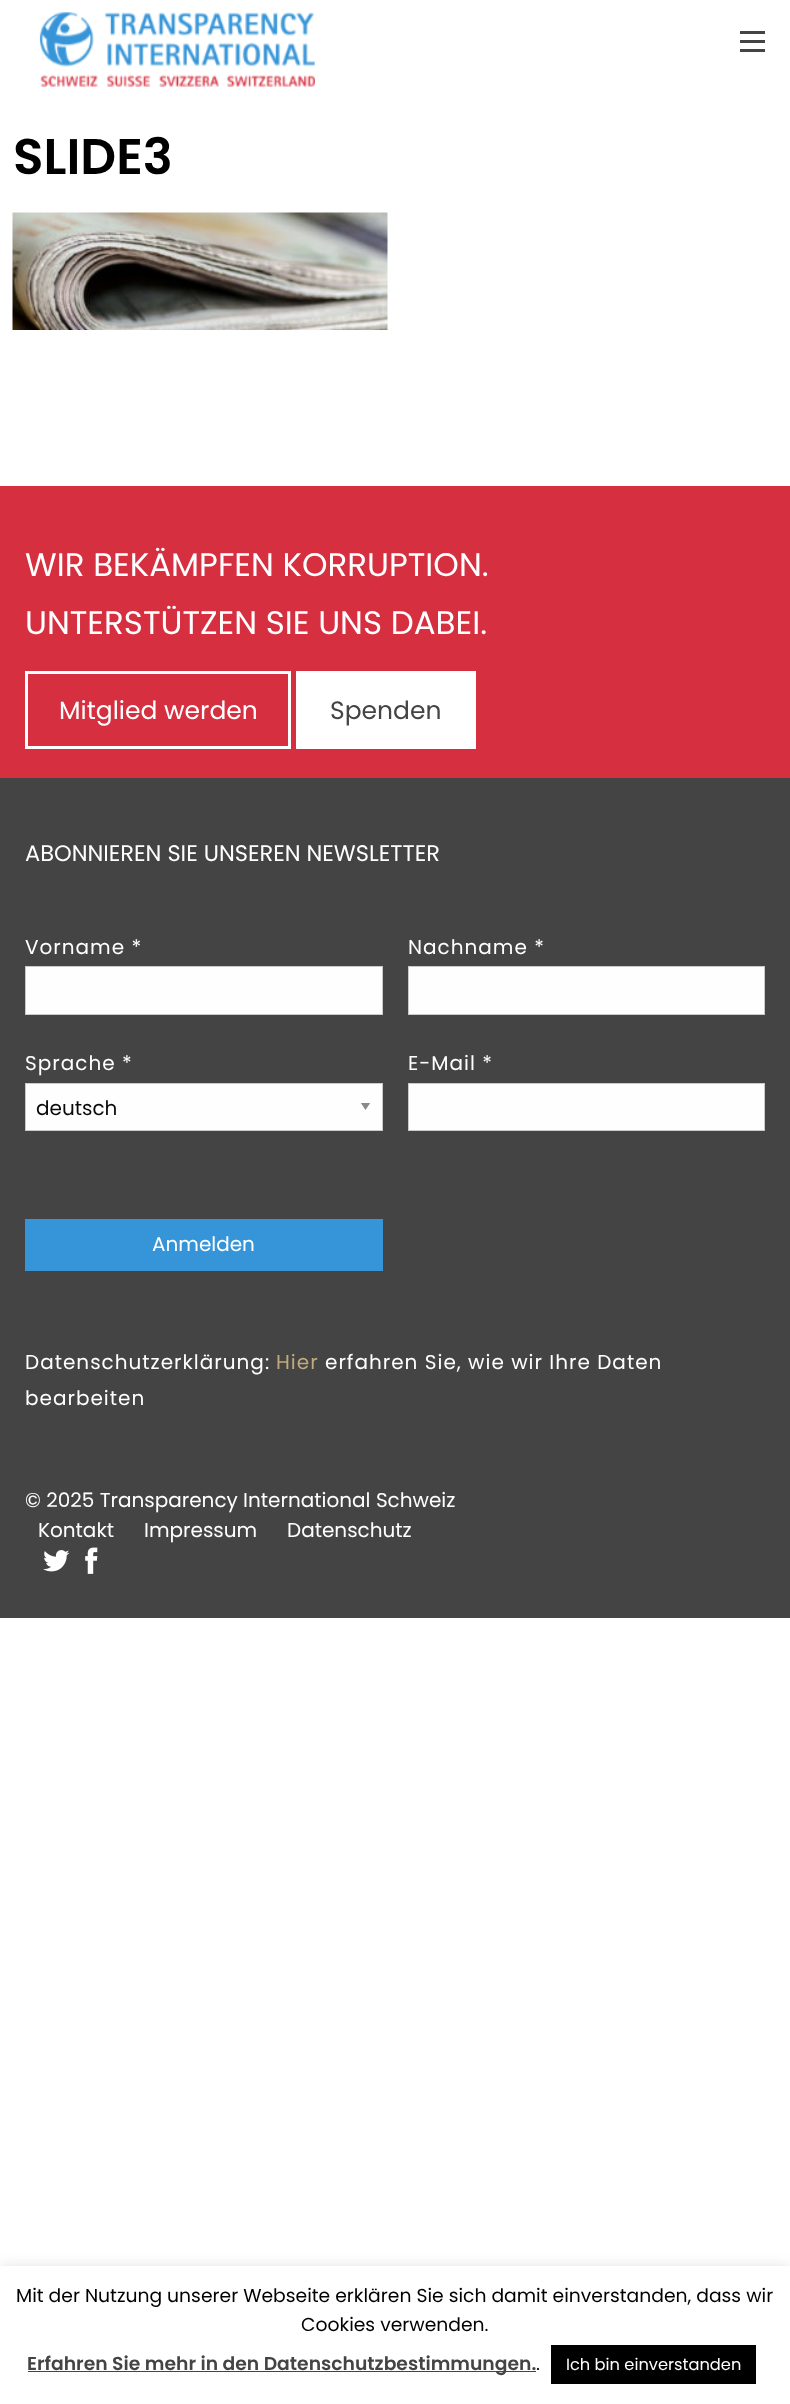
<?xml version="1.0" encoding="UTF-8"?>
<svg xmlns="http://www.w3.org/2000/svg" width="790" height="2404">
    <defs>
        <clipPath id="clip1"><rect x="360" y="1103" width="11" height="7"/></clipPath>
        <filter id="blur1" x="-50%" y="-200%" width="200%" height="500%"><feGaussianBlur stdDeviation="6"/></filter>
    </defs>
    <rect width="100%" height="100%" fill="#FFFFFF"/>
    <image x="39" y="12" width="276" height="75" href="img_01.png"/>
    <rect x="740" y="49" width="25" height="3" fill="#444444"/>
    <rect x="740" y="40" width="25" height="3" fill="#444444"/>
    <rect x="740" y="31" width="25" height="3" fill="#444444"/>
    <text x="13" y="174" font-family="Poppins" font-size="50" font-weight="600" fill="#000000">SLIDE3</text>
    <image x="12" y="212" width="376" height="118" href="img_02.png"/>
    <rect x="0" y="486" width="790" height="292" fill="#D52F40"/>
    <text font-family="Poppins" font-size="32.5" fill="#FFFFFF">
        <tspan x="25" y="576">WIR BEKÄMPFEN KORRUPTION.</tspan>
        <tspan x="25" y="634">UNTERSTÜTZEN SIE UNS DABEI.</tspan>
    </text>
    <rect x="26.5" y="672.5" width="263" height="75" fill="none" stroke="#FFFFFF" stroke-width="3"/>
    <text x="59" y="719" font-family="Poppins" font-size="25" fill="#FFFFFF">Mitglied werden</text>
    <rect x="296" y="671" width="180" height="78" fill="#FFFFFF"/>
    <text x="330" y="719" font-family="Poppins" font-size="25" fill="#444444">Spenden</text>
    <rect x="0" y="778" width="790" height="840" fill="#444444"/>
    <text x="25" y="861" font-family="Poppins" font-size="22.5" fill="#FFFFFF">ABONNIEREN SIE UNSEREN NEWSLETTER</text>
    <text x="25" y="954" font-family="Poppins" font-size="20" letter-spacing="1" fill="#FFFFFF">Vorname *</text>
    <rect x="25.5" y="966.5" width="357" height="48" fill="#FEFEFE" stroke="#CACACA"/>
    <text x="408" y="954" font-family="Poppins" font-size="20" letter-spacing="1" fill="#FFFFFF">Nachname *</text>
    <rect x="408.5" y="966.5" width="356" height="48" fill="#FEFEFE" stroke="#CACACA"/>
    <text x="25" y="1070" font-family="Poppins" font-size="20" letter-spacing="1" fill="#FFFFFF">Sprache *</text>
    <rect x="26" y="1084" width="356" height="46" fill="#FEFEFE"/>
    <g clip-path="url(#clip1)">
        <path d="M 360.5 1102.5 H 370.5 L 365.5 1110 Z" fill="#8A8A8A"/>
    </g>
    <rect x="25.5" y="1083.5" width="357" height="47" fill="none" stroke="#CACACA"/>
    <text x="36" y="1115" font-family="Poppins" font-size="20" fill="#0A0A0A">deutsch</text>
    <text x="408" y="1070" font-family="Poppins" font-size="20" letter-spacing="1" fill="#FFFFFF">E-Mail *</text>
    <rect x="408.5" y="1083.5" width="356" height="47" fill="#FEFEFE" stroke="#CACACA"/>
    <rect x="25" y="1219" width="358" height="52" fill="#3695D8"/>
    <text x="152" y="1251" font-family="Poppins" font-size="20" fill="#FFFFFF">Anmelden</text>
    <text x="25" y="1369" font-family="Poppins" font-size="20" letter-spacing="1" fill="#FFFFFF">Datenschutzerklärung:</text>
    <text x="276" y="1369" font-family="Poppins" font-size="20" letter-spacing="1" fill="#BFA97D">Hier</text>
    <text x="325" y="1369" font-family="Poppins" font-size="20" letter-spacing="1" fill="#FFFFFF">erfahren Sie, wie wir Ihre Daten</text>
    <text x="25" y="1405" font-family="Poppins" font-size="20" letter-spacing="1" fill="#FFFFFF">bearbeiten</text>
    <text x="25" y="1507" font-family="Poppins" font-size="20" fill="#FFFFFF">© 2025 Transparency International Schweiz</text>
    <text x="38" y="1537" font-family="Poppins" font-size="20" fill="#FFFFFF">Kontakt</text>
    <text x="144" y="1537" font-family="Poppins" font-size="20" fill="#FFFFFF">Impressum</text>
    <text x="287" y="1537" font-family="Poppins" font-size="20" fill="#FFFFFF">Datenschutz</text>
    <image x="43" y="1550" width="27" height="22" href="img_03.png"/>
    <image x="85" y="1547" width="13" height="27" href="img_04.png"/>
    <rect x="0" y="2265" width="790" height="139" fill="#ACABAB" fill-opacity="0.3" filter="url(#blur1)"/>
    <rect x="0" y="2266" width="790" height="138" fill="#FFFFFF"/>
    <text x="16" y="2302" font-family="Poppins" font-size="18.75" fill="#000000">Mit der Nutzung unserer Webseite erklären Sie sich damit einverstanden, dass wir</text>
    <text x="301" y="2331" font-family="Poppins" font-size="18.75" fill="#000000">Cookies verwenden.</text>
    <rect x="28" y="2371" width="508" height="1" fill="#444444"/>
    <text x="27" y="2370" font-family="Poppins" font-size="18.75" font-weight="600" fill="#444444">Erfahren Sie mehr in den Datenschutzbestimmungen.</text>
    <text x="536" y="2370" font-family="Poppins" font-size="18.75" fill="#000000">.</text>
    <rect x="551" y="2345" width="205" height="39" fill="#000000"/>
    <text x="566" y="2370" font-family="Poppins" font-size="16.25" fill="#FFFFFF">Ich bin einverstanden</text>
</svg>
